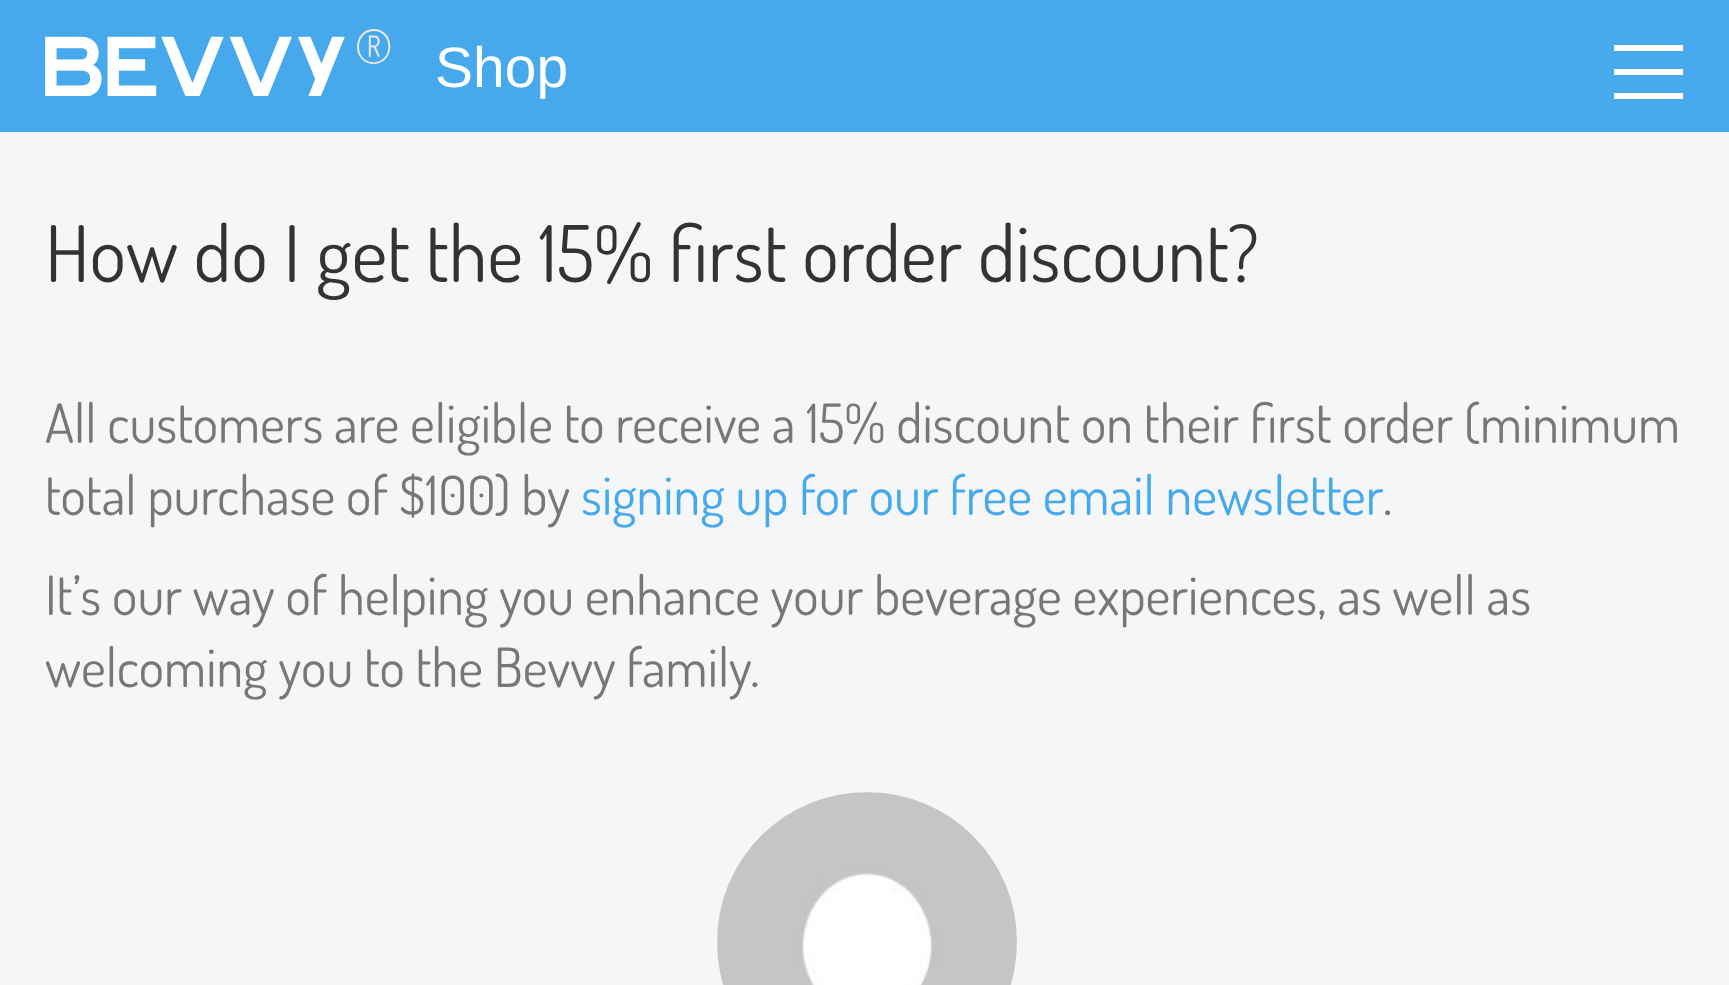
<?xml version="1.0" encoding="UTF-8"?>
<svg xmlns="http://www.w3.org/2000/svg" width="1729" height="985">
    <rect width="100%" height="100%" fill="#45A9EC"/>
    <image x="45" y="36" width="300" height="60" href="img_01.png"/>
    <text x="354" y="66" font-family="Dosis" font-size="54" font-weight="200" fill="#E8E8E8">®</text>
    <text x="435" y="87" font-family="Liberation Sans" font-size="57" fill="#FFFFFF">Shop</text>
    <rect x="0" y="132" width="1729" height="853" fill="#F5F6F8"/>
    <rect x="1614" y="69" width="69" height="6" fill="#FFFFFF"/>
    <rect x="1614" y="45" width="69" height="6" fill="#FFFFFF"/>
    <rect x="1614" y="93" width="69" height="6" fill="#FFFFFF"/>
    <text x="45" y="282" font-family="Dosis" font-size="78" fill="#333333">How do I get the 15% first order discount?</text>
    <text font-family="Dosis" font-size="54" fill="#777777">
        <tspan x="45" y="443">All customers are eligible to receive a 15% discount on their first order (minimum</tspan>
        <tspan x="45" y="515">total purchase of $100) by</tspan>
    </text>
    <text x="581" y="515" font-family="Dosis" font-size="54" fill="#45A9EC">signing up for our free email newsletter</text>
    <text x="1383" y="515" font-family="Dosis" font-size="54" fill="#777777">.</text>
    <text font-family="Dosis" font-size="54" fill="#777777">
        <tspan x="45" y="615">It’s our way of helping you enhance your beverage experiences, as well as</tspan>
        <tspan x="45" y="687">welcoming you to the Bevvy family.</tspan>
    </text>
    <circle cx="867" cy="942" r="150" fill="#EEEEEE"/>
    <image x="717" y="792" width="300" height="193" href="img_02.png"/>
</svg>
